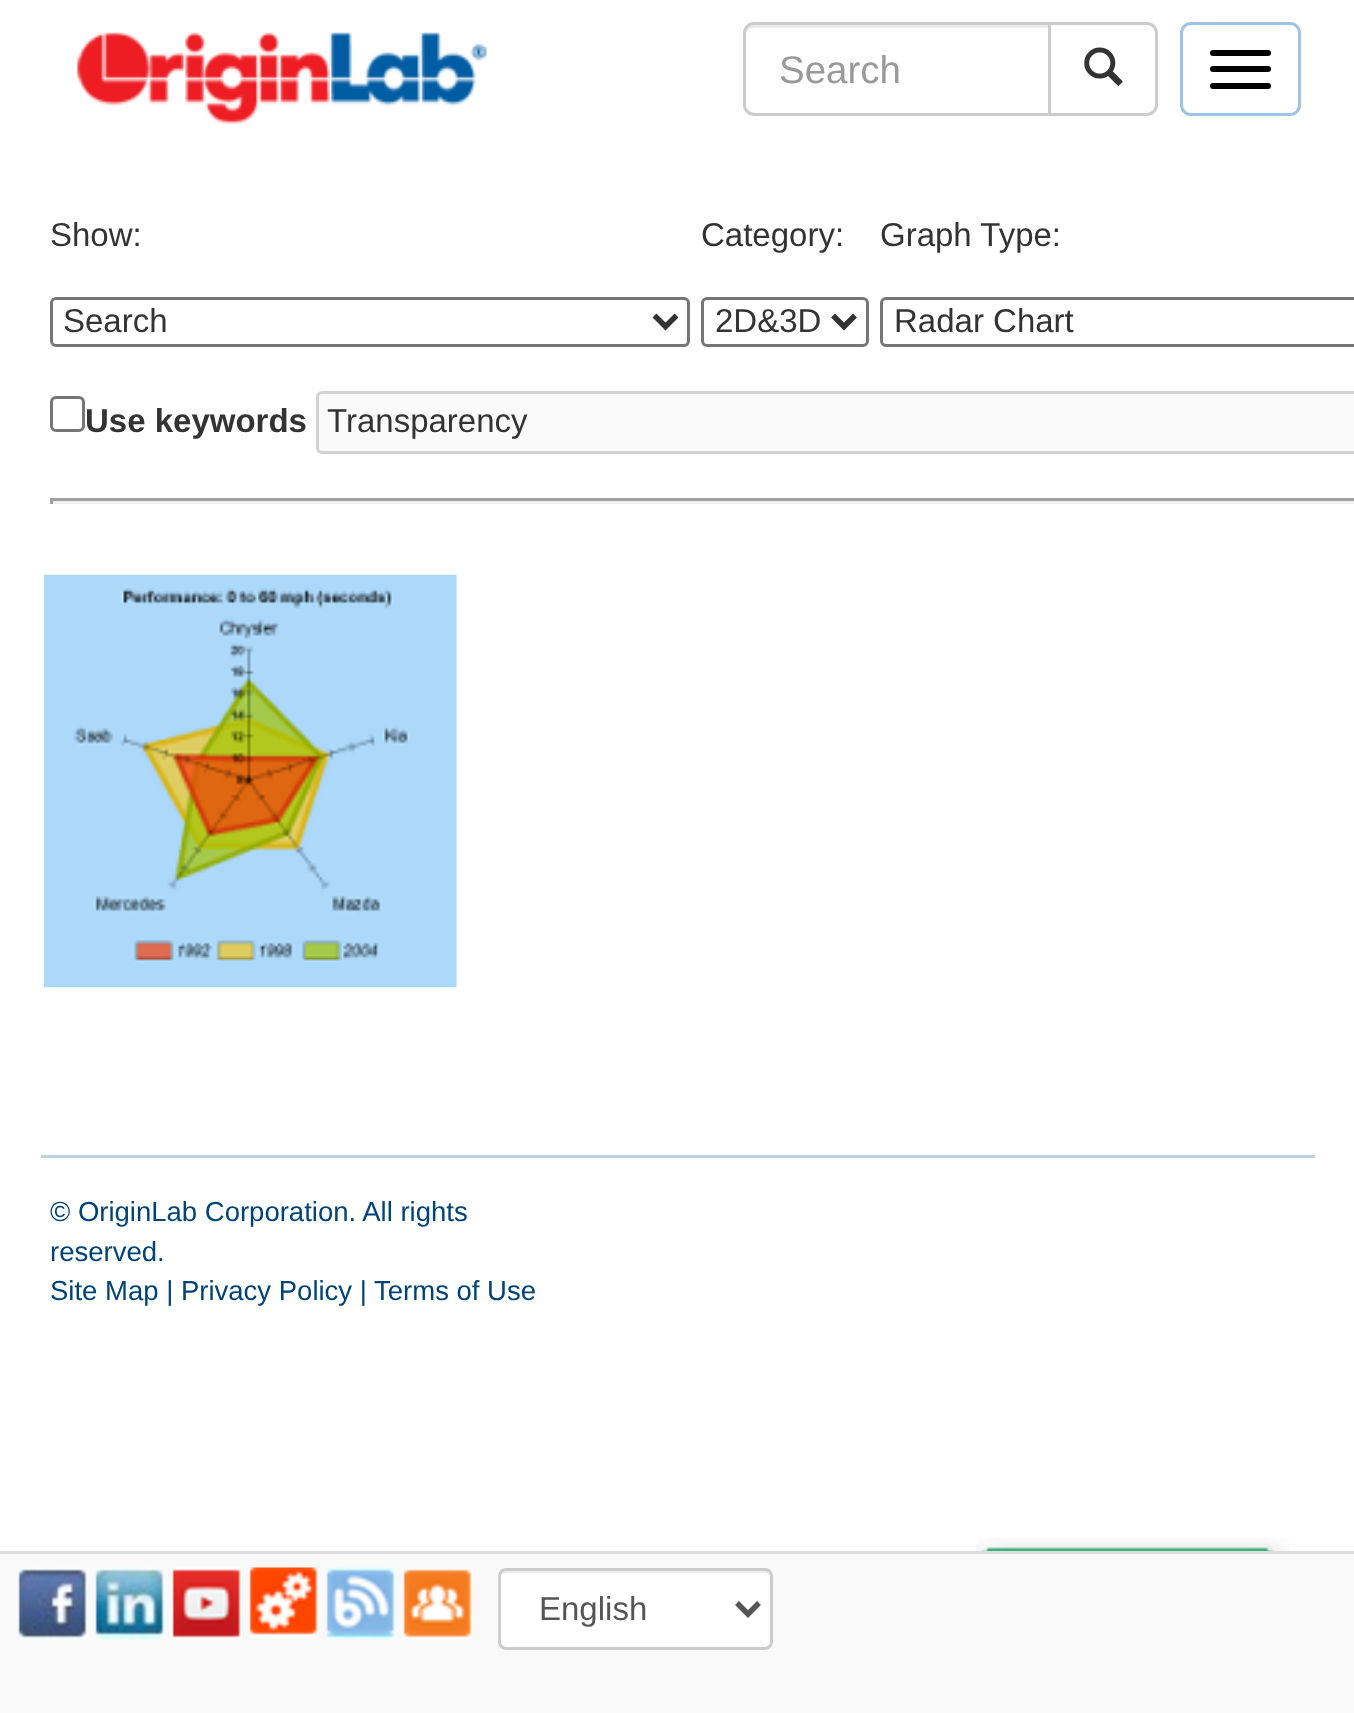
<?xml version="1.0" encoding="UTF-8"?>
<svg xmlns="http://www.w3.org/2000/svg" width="1354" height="1713">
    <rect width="100%" height="100%" fill="#FFFFFF"/>
    <image x="76" y="32" width="411" height="93" href="img_01.png"/>
    <path d="M 1049.5 23.5 H 1147 C 1152 23.5 1156.5 28 1156.5 33 V 105 C 1156.5 110 1152 114.5 1147 114.5 H 1049.5 Z" fill="none" stroke="#CCCCCC" stroke-width="3"/>
    <path d="M 754 22 H 1051 V 116 H 754 C 748 116 743 111 743 105 V 33 C 743 27 748 22 754 22 Z" fill="#FFFFFF"/>
    <path d="M 754 28 H 1048 V 25 H 753 C 749 25 745 29 745 33 V 36 C 745 31 749 28 754 28 Z" fill="#ECECEC"/>
    <path d="M 754 23.5 H 1049.5 V 114.5 H 754 C 749 114.5 744.5 110 744.5 105 V 33 C 744.5 28 749 23.5 754 23.5 Z" fill="none" stroke="#CCCCCC" stroke-width="3"/>
    <text x="779" y="83" font-family="Liberation Sans" font-size="38.5" fill="#999999">Search</text>
    <image x="1084" y="47" width="39" height="39" href="img_02.png"/>
    <rect x="1181.5" y="23.5" width="118" height="91" rx="9.5" fill="none" stroke="#9DC3E6" stroke-width="3"/>
    <rect x="1210" y="50" width="61" height="6" rx="3" fill="#000000"/>
    <rect x="1210" y="66" width="61" height="6" rx="3" fill="#000000"/>
    <rect x="1210" y="83" width="61" height="6" rx="3" fill="#000000"/>
    <text x="50" y="246" font-family="Liberation Sans" font-size="33" fill="#333333">Show:</text>
    <text x="701" y="246" font-family="Liberation Sans" font-size="33" fill="#333333">Category:</text>
    <text x="880" y="246" font-family="Liberation Sans" font-size="33" fill="#333333">Graph Type:</text>
    <rect x="51.5" y="298.5" width="637" height="47" rx="4.5" fill="none" stroke="#767676" stroke-width="3"/>
    <path d="M 654.5 315.5 L 665.5 326.5 L 676.5 315.5" fill="none" stroke="#333333" stroke-width="5.5"/>
    <text x="63" y="332" font-family="Liberation Sans" font-size="33" fill="#333333">Search</text>
    <rect x="702.5" y="298.5" width="165" height="47" rx="4.5" fill="none" stroke="#767676" stroke-width="3"/>
    <path d="M 833 315.5 L 844 326.5 L 855 315.5" fill="none" stroke="#333333" stroke-width="5.5"/>
    <text x="715" y="332" font-family="Liberation Sans" font-size="33" fill="#333333">2D&amp;3D</text>
    <rect x="881.5" y="298.5" width="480" height="47" rx="4.5" fill="none" stroke="#767676" stroke-width="3"/>
    <text x="894" y="332" font-family="Liberation Sans" font-size="33" fill="#333333">Radar Chart</text>
    <rect x="51.5" y="397.5" width="32" height="33" rx="4.5" fill="none" stroke="#767676" stroke-width="3"/>
    <text x="85" y="432" font-family="Liberation Sans" font-size="33" font-weight="700" fill="#333333">Use keywords</text>
    <rect x="317.5" y="392.5" width="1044" height="60" rx="4.5" fill="#FAFAFA" stroke="#D2D2D2" stroke-width="3"/>
    <text x="327" y="432" font-family="Liberation Sans" font-size="33" fill="#333333">Transparency</text>
    <rect x="50" y="498" width="1304" height="3" fill="#9F9F9F"/>
    <rect x="50" y="501" width="1304" height="3" fill="#EEEEEE"/>
    <rect x="50" y="498" width="3" height="6" fill="#9F9F9F"/>
    <image x="44" y="574" width="413" height="414" href="img_03.png"/>
    <rect x="41" y="1155" width="1274" height="3" fill="#B8D1E3"/>
    <text font-family="Liberation Sans" font-size="27.5" fill="#004376">
        <tspan x="50" y="1221">© OriginLab Corporation. All rights</tspan>
        <tspan x="50" y="1261">reserved.</tspan>
        <tspan x="50" y="1300">Site Map | Privacy Policy | Terms of Use</tspan>
    </text>
    <image x="977" y="1538" width="313" height="13" href="img_04.png"/>
    <rect x="0" y="1554" width="1354" height="159" fill="#F9F9F9"/>
    <rect x="0" y="1551" width="1354" height="3" fill="#DDDDDD"/>
    <image x="18" y="1567" width="70" height="72" href="img_05.png"/>
    <image x="95" y="1567" width="71" height="73" href="img_06.png"/>
    <image x="172" y="1567" width="70" height="72" href="img_07.png"/>
    <image x="249" y="1567" width="70" height="72" href="img_08.png"/>
    <image x="326" y="1567" width="71" height="73" href="img_09.png"/>
    <image x="403" y="1568" width="71" height="71" href="img_10.png"/>
    <rect x="498" y="1568" width="275" height="82" rx="8" fill="#FFFFFF"/>
    <path d="M 506 1573 H 764 C 768 1573 770 1575 770 1578 V 1576 C 770 1573 767 1570 764 1570 H 507 C 504 1570 501 1572 501 1575 C 502 1574 504 1573 506 1573 Z" fill="#ECECEC"/>
    <rect x="499.5" y="1569.5" width="272" height="79" rx="6.5" fill="none" stroke="#CCCCCC" stroke-width="3"/>
    <path d="M 737 1603 L 748 1614 L 759 1603" fill="none" stroke="#555555" stroke-width="5.5"/>
    <text x="539" y="1620" font-family="Liberation Sans" font-size="33" fill="#555555">English</text>
</svg>
